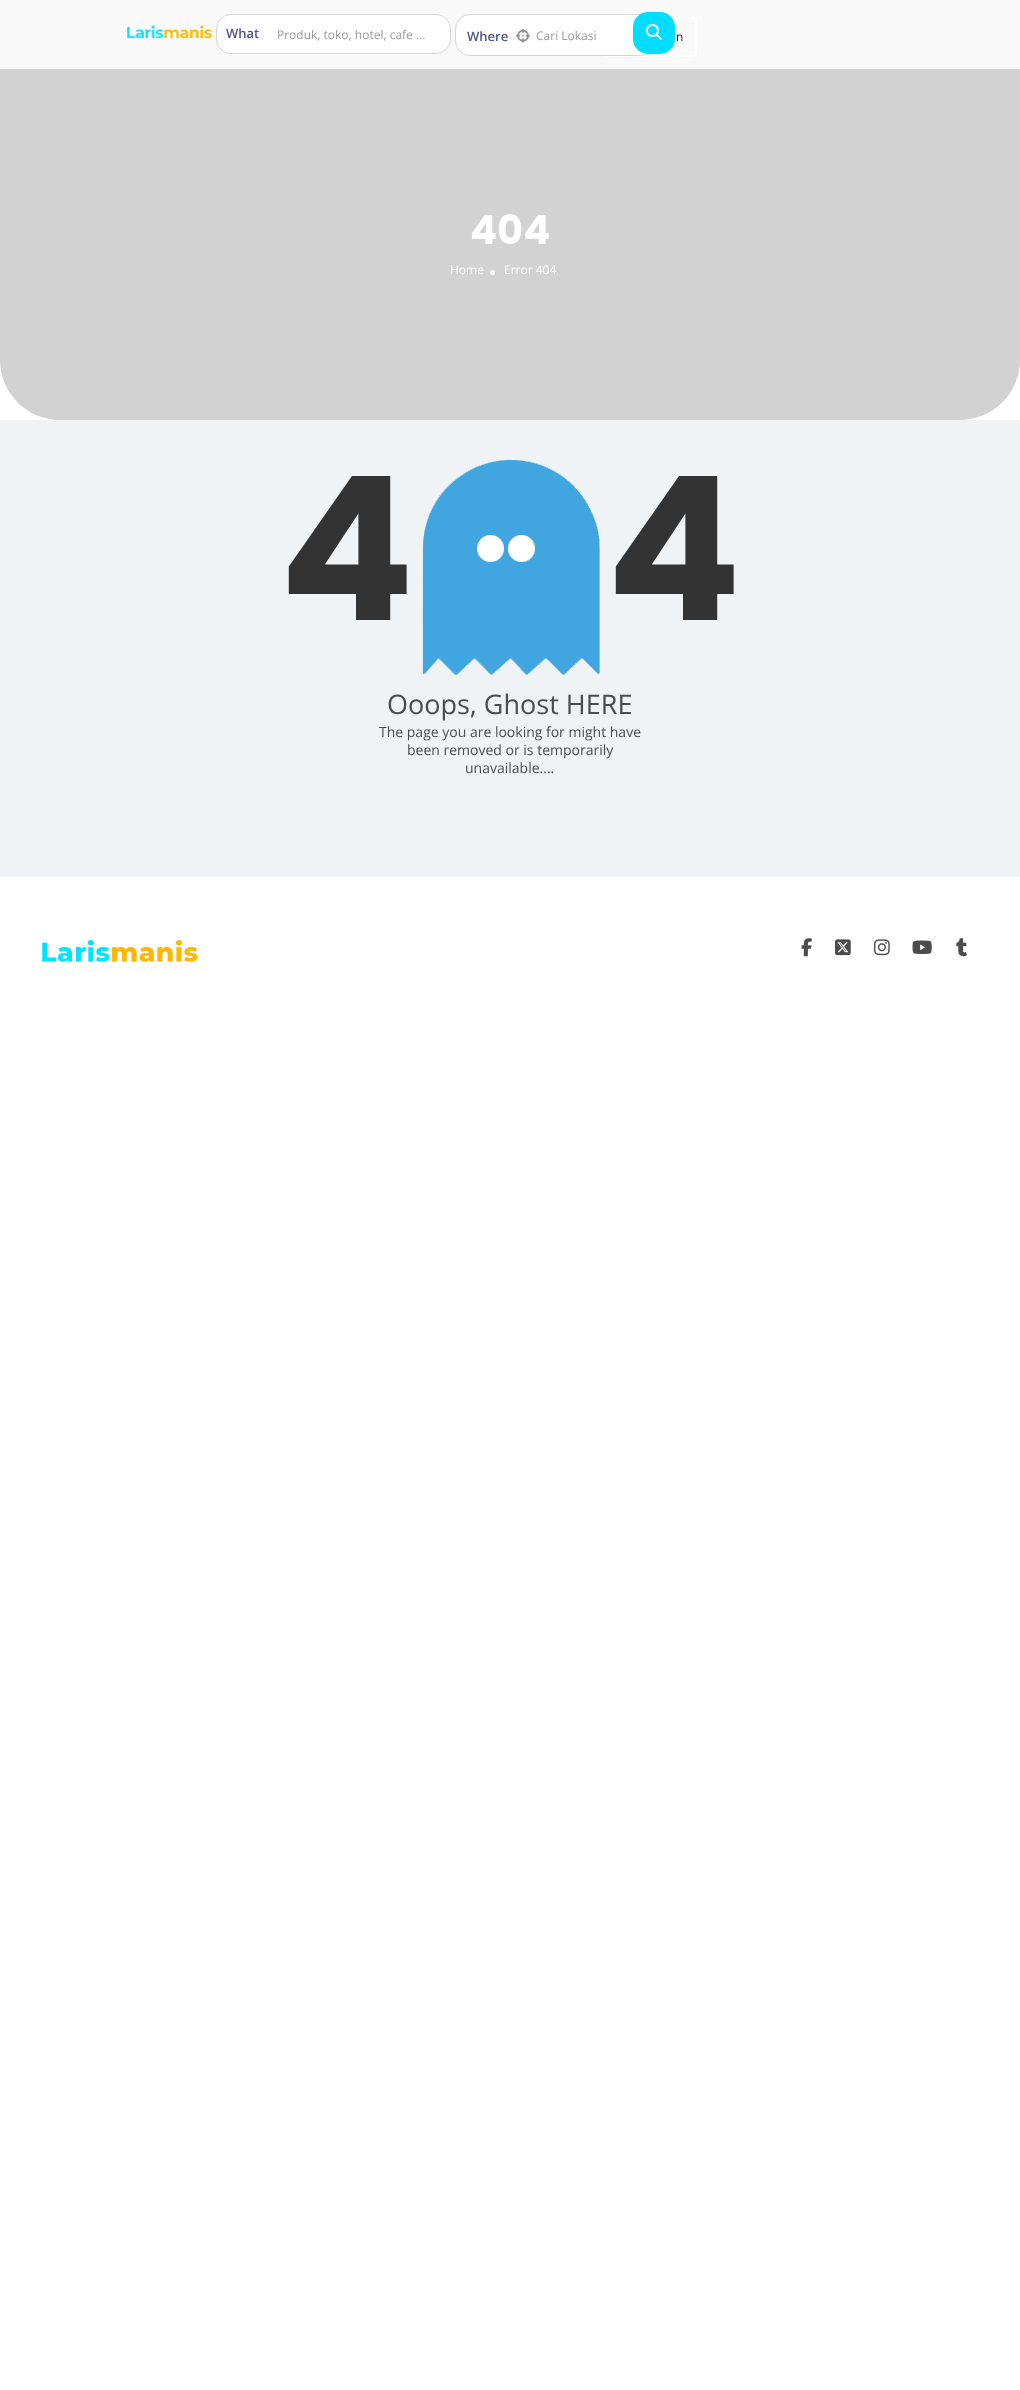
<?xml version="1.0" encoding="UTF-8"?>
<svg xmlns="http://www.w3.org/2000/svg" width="1020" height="2390">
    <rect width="100%" height="100%" fill="#FFFFFF"/>
    <rect x="0" y="0" width="1020" height="69" fill="#F9F9F9"/>
    <rect x="0" y="69" width="1020" height="1" fill="#D6D6D6"/>
    <image x="127" y="25" width="85" height="14" href="img_01.png"/>
    <rect x="216.5" y="14.5" width="234" height="39" rx="14.5" fill="#FFFFFF" stroke="#D6D6D6"/>
    <text x="226" y="38" font-family="Open Sans" font-size="13" font-weight="600" fill="#4F5685">What</text>
    <text x="277" y="39" font-family="Open Sans" font-size="12" fill="#999999">Produk, toko, hotel, cafe ...</text>
    <rect x="603" y="18" width="93" height="38" rx="4" fill="none" stroke="#FFFFFF" stroke-width="2"/>
    <rect x="455.5" y="14.5" width="199" height="41" rx="14.5" fill="#FFFFFF" stroke="#D6D6D6"/>
    <text x="467" y="41" font-family="Open Sans" font-size="13" font-weight="600" fill="#4F5685">Where</text>
    <image x="516" y="28" width="14" height="15" href="img_02.png"/>
    <text x="536" y="40" font-family="Open Sans" font-size="12" fill="#999999">Cari Lokasi</text>
    <rect x="633" y="12" width="42" height="42" rx="15" fill="#00DDFF"/>
    <image x="646" y="24" width="16" height="16" href="img_03.png"/>
    <text x="676" y="41" font-family="Open Sans" font-size="12" fill="#212121">n</text>
    <path d="M 0 70 H 1020 V 360 C 1020 393 993 420 960 420 H 60 C 27 420 0 393 0 360 Z" fill="#D2D2D2"/>
    <text x="470" y="244" font-family="Poppins" font-size="40" font-weight="700" fill="#FFFFFF">404</text>
    <text x="450" y="274" font-family="Open Sans" font-size="12" fill="#FFFFFF">Home</text>
    <circle cx="492.5" cy="272.5" r="2.5" fill="#FFFFFF"/>
    <text x="504" y="274" font-family="Open Sans" font-size="12" fill="#FFFFFF">Error 404</text>
    <rect x="0" y="420" width="1020" height="457" fill="#EFF3F6"/>
    <text x="279" y="620" font-family="Poppins" font-size="200" font-weight="700" fill="#333333">4</text>
    <image x="422" y="459" width="178" height="216" href="img_04.png"/>
    <text x="606" y="620" font-family="Poppins" font-size="200" font-weight="700" fill="#333333">4</text>
    <text x="387" y="714" font-family="Open Sans" font-size="27" fill="#4C4C4C">Ooops, Ghost HERE</text>
    <text x="379" y="737" font-family="Open Sans" font-size="14" fill="#4C4C4C">The page you are looking for might have</text>
    <text x="407" y="755" font-family="Open Sans" font-size="14" fill="#4C4C4C">been removed or is temporarily</text>
    <text x="465" y="773" font-family="Open Sans" font-size="14" fill="#4C4C4C">unavailable....</text>
    <image x="42" y="939" width="156" height="24" href="img_05.png"/>
    <image x="801" y="938" width="11" height="19" href="img_06.png"/>
    <image x="835" y="939" width="16" height="17" href="img_07.png"/>
    <image x="874" y="939" width="16" height="17" href="img_08.png"/>
    <image x="912" y="940" width="20" height="14" href="img_09.png"/>
    <image x="956" y="938" width="11" height="19" href="img_10.png"/>
</svg>
